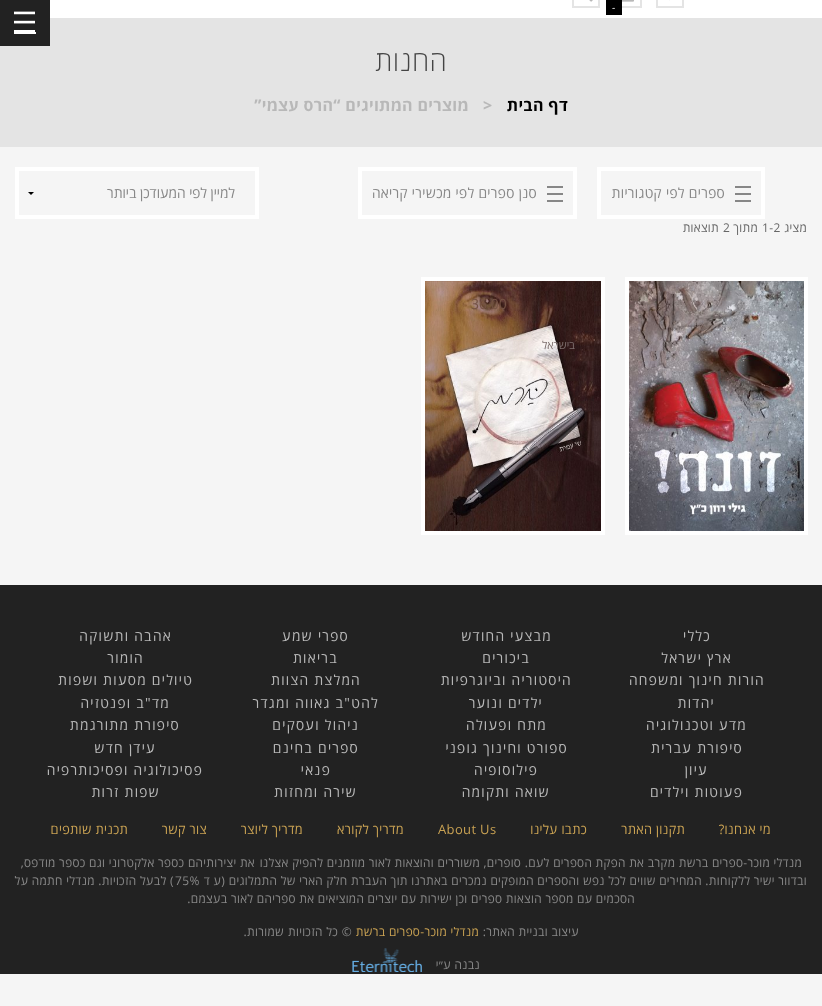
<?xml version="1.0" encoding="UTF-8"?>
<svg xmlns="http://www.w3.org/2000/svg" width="822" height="1006">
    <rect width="100%" height="100%" fill="#F5F5F5"/>
    <rect x="50" y="0" width="772" height="18" fill="#FFFFFF"/>
    <rect x="657" y="-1" width="26" height="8" fill="none" stroke="#E4E4E4" stroke-width="2"/>
    <rect x="669" y="0" width="1" height="1" fill="#FAFAFA"/>
    <rect x="615" y="-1" width="26" height="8" fill="none" stroke="#E4E4E4" stroke-width="2"/>
    <image x="622" y="0" width="12" height="2" href="img_01.png"/>
    <rect x="606" y="0" width="16" height="15" fill="#000000"/>
    <text x="612" y="11" font-family="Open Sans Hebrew" font-size="10" letter-spacing="0.35" fill="#FFFFFF">-</text>
    <rect x="573" y="-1" width="26" height="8" fill="none" stroke="#E4E4E4" stroke-width="2"/>
    <image x="589" y="0" width="4" height="2" href="img_02.png"/>
    <rect x="0" y="18" width="822" height="129" fill="#E4E4E4"/>
    <text x="447" y="71" font-family="Open Sans Hebrew" font-size="28" font-weight="300" letter-spacing="0.35" direction="rtl" fill="#444444">החנות</text>
    <text x="568" y="111" font-family="Open Sans Hebrew" font-size="16" font-weight="700" letter-spacing="0.35" direction="rtl" fill="#000000">דף הבית</text>
    <text x="483" y="111" font-family="Open Sans Hebrew" font-size="16" font-weight="700" letter-spacing="0.35" fill="#B8B8B8">&gt;</text>
    <text x="469" y="111" font-family="Open Sans Hebrew" font-size="16" font-weight="700" letter-spacing="0.35" direction="rtl" fill="#B8B8B8">מוצרים המתויגים “הרס עצמי”</text>
    <rect x="599" y="169" width="164" height="48" fill="none" stroke="#FFFFFF" stroke-width="4"/>
    <image x="735" y="186" width="16" height="16" href="img_03.png"/>
    <text x="725" y="198" font-family="Open Sans Hebrew" font-size="14" letter-spacing="0.35" direction="rtl" fill="#888888">ספרים לפי קטגוריות</text>
    <rect x="360" y="169" width="215" height="48" fill="none" stroke="#FFFFFF" stroke-width="4"/>
    <image x="547" y="186" width="16" height="16" href="img_03.png"/>
    <text x="537" y="198" font-family="Open Sans Hebrew" font-size="14" letter-spacing="0.35" direction="rtl" fill="#888888">סנן ספרים לפי מכשירי קריאה</text>
    <text x="807" y="232" font-family="Open Sans Hebrew" font-size="12" letter-spacing="0.35" direction="rtl" fill="#666666">מציג</text>
    <text x="762" y="232" font-family="Open Sans Hebrew" font-size="12" letter-spacing="0.35" fill="#666666">1-2</text>
    <text x="758" y="232" font-family="Open Sans Hebrew" font-size="12" letter-spacing="0.35" direction="rtl" fill="#666666">מתוך</text>
    <text x="723" y="232" font-family="Open Sans Hebrew" font-size="12" letter-spacing="0.35" fill="#666666">2</text>
    <text x="719" y="232" font-family="Open Sans Hebrew" font-size="12" letter-spacing="0.35" direction="rtl" fill="#666666">תוצאות</text>
    <path d="M 34 192 L 31 195 L 28 192 Z" fill="#000000"/>
    <rect x="17" y="169" width="240" height="48" fill="none" stroke="#FFFFFF" stroke-width="4"/>
    <text x="235" y="198" font-family="Open Sans Hebrew" font-size="14" direction="rtl" fill="#888888">למיין לפי המעודכן ביותר</text>
    <rect x="627" y="279" width="179" height="254" fill="none" stroke="#FFFFFF" stroke-width="4"/>
    <image x="629" y="281" width="175" height="250" href="img_04.png"/>
    <rect x="423" y="279" width="180" height="254" fill="none" stroke="#FFFFFF" stroke-width="4"/>
    <image x="425" y="281" width="176" height="250" href="img_05.png"/>
    <text x="471" y="309" font-family="Open Sans Hebrew" font-size="14" fill="#755344">36.00</text>
    <text x="575" y="349" font-family="Open Sans Hebrew" font-size="11" direction="rtl" fill="#7C6E6D">בישראל</text>
    <rect x="0" y="0" width="50" height="46" fill="#222222"/>
    <image x="14" y="11" width="21" height="21" href="img_06.png"/>
    <rect x="14" y="32" width="22" height="2" fill="#FFFFFF"/>
    <rect x="0" y="585" width="822" height="389" fill="#222222"/>
    <text x="711" y="641" font-family="Open Sans Hebrew" font-size="14" letter-spacing="1.3" direction="rtl" fill="#B8B8B8">כללי</text>
    <text x="552" y="641" font-family="Open Sans Hebrew" font-size="14" letter-spacing="1.3" direction="rtl" fill="#B8B8B8">מבצעי החודש</text>
    <text x="349" y="641" font-family="Open Sans Hebrew" font-size="14" letter-spacing="1.3" direction="rtl" fill="#B8B8B8">ספרי שמע</text>
    <text x="172" y="641" font-family="Open Sans Hebrew" font-size="14" letter-spacing="1.3" direction="rtl" fill="#B8B8B8">אהבה ותשוקה</text>
    <text x="732" y="663" font-family="Open Sans Hebrew" font-size="14" letter-spacing="1.3" direction="rtl" fill="#B8B8B8">ארץ ישראל</text>
    <text x="530" y="663" font-family="Open Sans Hebrew" font-size="14" letter-spacing="1.3" direction="rtl" fill="#B8B8B8">ביכורים</text>
    <text x="338" y="663" font-family="Open Sans Hebrew" font-size="14" letter-spacing="1.3" direction="rtl" fill="#B8B8B8">בריאות</text>
    <text x="144" y="663" font-family="Open Sans Hebrew" font-size="14" letter-spacing="1.3" direction="rtl" fill="#B8B8B8">הומור</text>
    <text x="765" y="685" font-family="Open Sans Hebrew" font-size="14" letter-spacing="1.3" direction="rtl" fill="#B8B8B8">הורות חינוך ומשפחה</text>
    <text x="572" y="685" font-family="Open Sans Hebrew" font-size="14" letter-spacing="1.3" direction="rtl" fill="#B8B8B8">היסטוריה וביוגרפיות</text>
    <text x="361" y="685" font-family="Open Sans Hebrew" font-size="14" letter-spacing="1.3" direction="rtl" fill="#B8B8B8">המלצת הצוות</text>
    <text x="193" y="685" font-family="Open Sans Hebrew" font-size="14" letter-spacing="1.3" direction="rtl" fill="#B8B8B8">טיולים מסעות ושפות</text>
    <text x="715" y="708" font-family="Open Sans Hebrew" font-size="14" letter-spacing="1.3" direction="rtl" fill="#B8B8B8">יהדות</text>
    <text x="543" y="708" font-family="Open Sans Hebrew" font-size="14" letter-spacing="1.3" direction="rtl" fill="#B8B8B8">ילדים ונוער</text>
    <text x="379" y="708" font-family="Open Sans Hebrew" font-size="14" letter-spacing="1.3" direction="rtl" fill="#B8B8B8">להט"ב גאווה ומגדר</text>
    <text x="170" y="708" font-family="Open Sans Hebrew" font-size="14" letter-spacing="1.3" direction="rtl" fill="#B8B8B8">מד"ב ופנטזיה</text>
    <text x="747" y="730" font-family="Open Sans Hebrew" font-size="14" letter-spacing="1.3" direction="rtl" fill="#B8B8B8">מדע וטכנולוגיה</text>
    <text x="547" y="730" font-family="Open Sans Hebrew" font-size="14" letter-spacing="1.3" direction="rtl" fill="#B8B8B8">מתח ופעולה</text>
    <text x="359" y="730" font-family="Open Sans Hebrew" font-size="14" letter-spacing="1.3" direction="rtl" fill="#B8B8B8">ניהול ועסקים</text>
    <text x="180" y="730" font-family="Open Sans Hebrew" font-size="14" letter-spacing="1.3" direction="rtl" fill="#B8B8B8">סיפורת מתורגמת</text>
    <text x="743" y="753" font-family="Open Sans Hebrew" font-size="14" letter-spacing="1.3" direction="rtl" fill="#B8B8B8">סיפורת עברית</text>
    <text x="568" y="753" font-family="Open Sans Hebrew" font-size="14" letter-spacing="1.3" direction="rtl" fill="#B8B8B8">ספורט וחינוך גופני</text>
    <text x="359" y="753" font-family="Open Sans Hebrew" font-size="14" letter-spacing="1.3" direction="rtl" fill="#B8B8B8">ספרים בחינם</text>
    <text x="156" y="753" font-family="Open Sans Hebrew" font-size="14" letter-spacing="1.3" direction="rtl" fill="#B8B8B8">עידן חדש</text>
    <text x="708" y="775" font-family="Open Sans Hebrew" font-size="14" letter-spacing="1.3" direction="rtl" fill="#B8B8B8">עיון</text>
    <text x="538" y="775" font-family="Open Sans Hebrew" font-size="14" letter-spacing="1.3" direction="rtl" fill="#B8B8B8">פילוסופיה</text>
    <text x="331" y="775" font-family="Open Sans Hebrew" font-size="14" letter-spacing="1.3" direction="rtl" fill="#B8B8B8">פנאי</text>
    <text x="203" y="775" font-family="Open Sans Hebrew" font-size="14" letter-spacing="1.3" direction="rtl" fill="#B8B8B8">פסיכולוגיה ופסיכותרפיה</text>
    <text x="743" y="797" font-family="Open Sans Hebrew" font-size="14" letter-spacing="1.3" direction="rtl" fill="#B8B8B8">פעוטות וילדים</text>
    <text x="550" y="797" font-family="Open Sans Hebrew" font-size="14" letter-spacing="1.3" direction="rtl" fill="#B8B8B8">שואה ותקומה</text>
    <text x="357" y="797" font-family="Open Sans Hebrew" font-size="14" letter-spacing="1.3" direction="rtl" fill="#B8B8B8">שירה ומחזות</text>
    <text x="160" y="797" font-family="Open Sans Hebrew" font-size="14" letter-spacing="1.3" direction="rtl" fill="#B8B8B8">שפות זרות</text>
    <text x="771" y="834" font-family="Open Sans Hebrew" font-size="13" letter-spacing="0.35" direction="rtl" fill="#C9A253">מי אנחנו?</text>
    <text x="685" y="834" font-family="Open Sans Hebrew" font-size="13" letter-spacing="0.35" direction="rtl" fill="#C9A253">תקנון האתר</text>
    <text x="587" y="834" font-family="Open Sans Hebrew" font-size="13" letter-spacing="0.35" direction="rtl" fill="#C9A253">כתבו עלינו</text>
    <text x="438" y="834" font-family="Open Sans Hebrew" font-size="13" letter-spacing="0.35" fill="#C9A253">About Us</text>
    <text x="404" y="834" font-family="Open Sans Hebrew" font-size="13" letter-spacing="0.35" direction="rtl" fill="#C9A253">מדריך לקורא</text>
    <text x="303" y="834" font-family="Open Sans Hebrew" font-size="13" letter-spacing="0.35" direction="rtl" fill="#C9A253">מדריך ליוצר</text>
    <text x="207" y="834" font-family="Open Sans Hebrew" font-size="13" letter-spacing="0.35" direction="rtl" fill="#C9A253">צור קשר</text>
    <text x="128" y="834" font-family="Open Sans Hebrew" font-size="13" letter-spacing="0.35" direction="rtl" fill="#C9A253">תכנית שותפים</text>
    <text x="802" y="867" font-family="Open Sans Hebrew" font-size="12" letter-spacing="0.35" direction="rtl" fill="#888888">מנדלי מוכר-ספרים ברשת מקרב את הפקת הספרים לעם. סופרים, משוררים והוצאות לאור מוזמנים להפיק אצלנו</text>
    <text x="255" y="867" font-family="Open Sans Hebrew" font-size="12" letter-spacing="0.35" direction="rtl" fill="#888888">את יצירותיהם כספר אלקטרוני וגם כספר מודפס,</text>
    <text x="807" y="885" font-family="Open Sans Hebrew" font-size="12" letter-spacing="0.35" direction="rtl" fill="#888888">ובדוור ישיר ללקוחות. המחירים שווים לכל נפש והספרים</text>
    <text x="534" y="885" font-family="Open Sans Hebrew" font-size="12" letter-spacing="0.35" direction="rtl" fill="#888888">המופקים נמכרים באתרנו תוך העברת חלק הארי של התמלוגים (ע ד</text>
    <text x="175" y="885" font-family="Open Sans Hebrew" font-size="12" letter-spacing="0.35" fill="#888888">75%</text>
    <text x="174" y="885" font-family="Open Sans Hebrew" font-size="12" letter-spacing="0.35" direction="rtl" fill="#888888">) לבעל הזכויות. מנדלי חתמה על</text>
    <text x="635" y="903" font-family="Open Sans Hebrew" font-size="12" letter-spacing="0.35" direction="rtl" fill="#888888">הסכמים עם מספר הוצאות ספרים וכן ישירות עם יוצרים המוציאים את ספריהם לאור בעצמם.</text>
    <text x="579" y="936" font-family="Open Sans Hebrew" font-size="12" letter-spacing="0.35" direction="rtl" fill="#888888">עיצוב ובניית האתר:</text>
    <text x="479" y="936" font-family="Open Sans Hebrew" font-size="12" letter-spacing="0.35" direction="rtl" fill="#C9A253">מנדלי מוכר-ספרים ברשת</text>
    <text x="352" y="936" font-family="Open Sans Hebrew" font-size="12" letter-spacing="0.35" direction="rtl" fill="#888888">© כל הזכויות</text>
    <text x="284" y="936" font-family="Open Sans Hebrew" font-size="12" letter-spacing="0.35" direction="rtl" fill="#888888">שמורות.</text>
    <text x="480" y="969" font-family="Open Sans Hebrew" font-size="12" letter-spacing="0.35" direction="rtl" fill="#888888">נבנה ע״י</text>
    <image x="352" y="948" width="70" height="24" href="img_07.png"/>
</svg>
